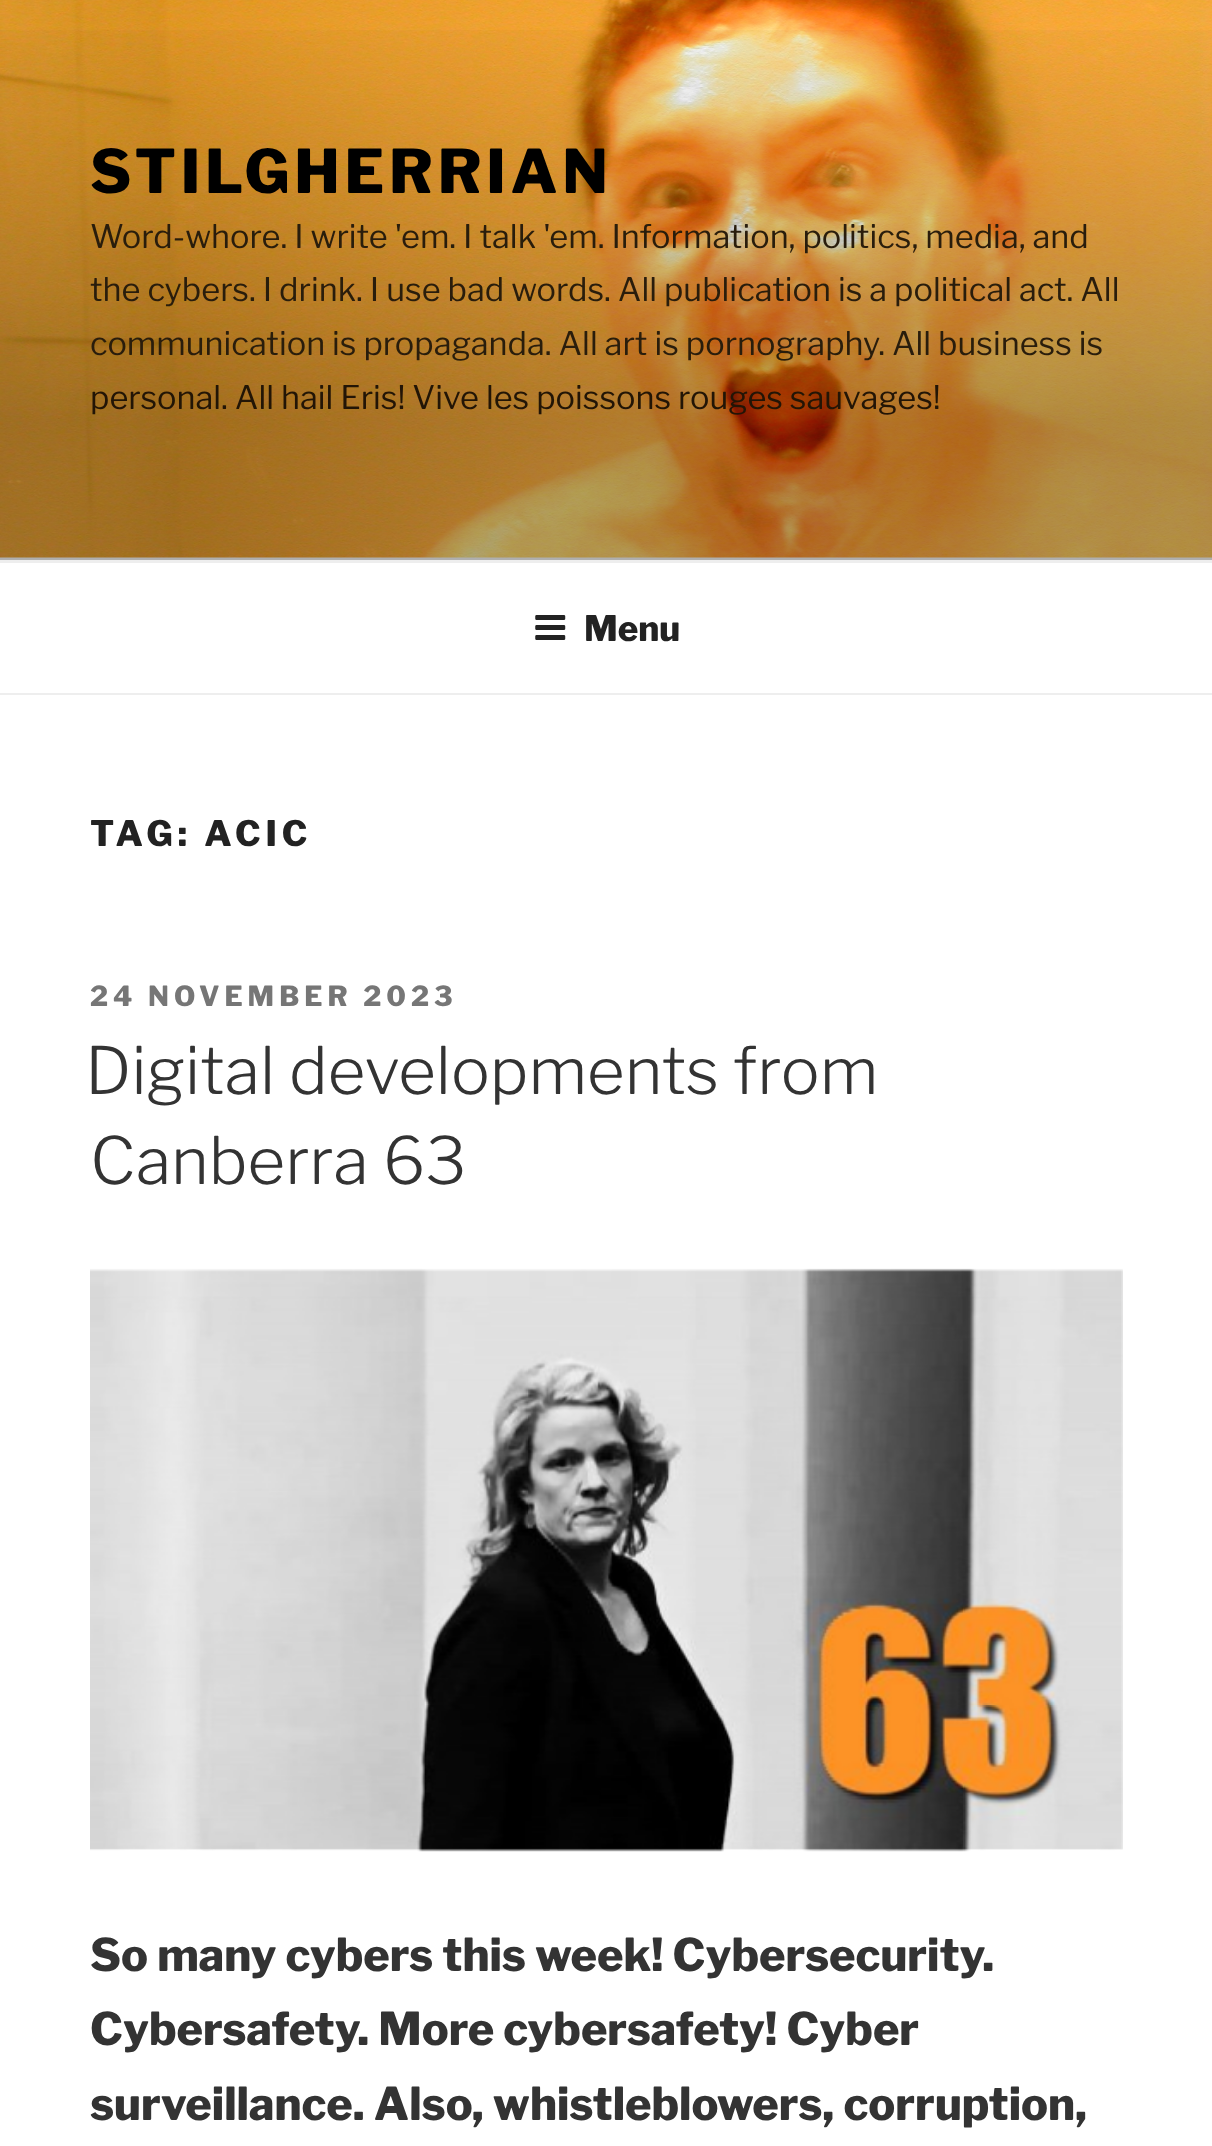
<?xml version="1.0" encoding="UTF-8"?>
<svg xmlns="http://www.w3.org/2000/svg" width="1212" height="2146">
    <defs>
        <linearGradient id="g1" gradientUnits="userSpaceOnUse" x1="606" y1="0" x2="606" y2="560"><stop offset="0" stop-color="#000000" stop-opacity="0"/><stop offset="0.75" stop-color="#000000" stop-opacity="0.3"/><stop offset="1" stop-color="#000000" stop-opacity="0.3"/></linearGradient>
    </defs>
    <rect width="100%" height="100%" fill="#FAFAFA"/>
    <image x="0" y="0" width="1212" height="558" href="img_01.png"/>
    <rect x="0" y="30" width="1212" height="530" fill="url(#g1)"/>
    <text x="90" y="193" font-family="Libre Franklin" font-size="60" font-weight="100" letter-spacing="4.75" fill="#000000">STILGHERRIAN</text>
    <text font-family="'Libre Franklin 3'" font-size="32.5" font-weight="100" fill="#291D0C">
        <tspan x="90" y="248">Word-whore. I write 'em. I talk 'em. Information, politics, media, and</tspan>
        <tspan x="90" y="301">the cybers. I drink. I use bad words. All publication is a political act. All</tspan>
        <tspan x="90" y="355">communication is propaganda. All art is pornography. All business is</tspan>
    </text>
    <text x="90" y="409" font-family="'Libre Franklin 3'" font-size="32.5" font-weight="100" fill="#221506">personal. All hail Eris! Vive les poissons rouges sauvages!</text>
    <rect x="0" y="563" width="1212" height="130" fill="#FFFFFF"/>
    <rect x="0" y="560" width="1212" height="3" fill="#EEEEEE"/>
    <rect x="0" y="693" width="1212" height="2" fill="#EEEEEE"/>
    <image x="535" y="615" width="31" height="25" href="img_02.png"/>
    <text x="584" y="641" font-family="Libre Franklin" font-size="35" font-weight="100" fill="#222222">Menu</text>
    <rect x="0" y="695" width="1212" height="1451" fill="#FFFFFF"/>
    <text x="90" y="846" font-family="Libre Franklin" font-size="35" font-weight="100" letter-spacing="5" fill="#222222">TAG: ACIC</text>
    <text x="90" y="1006" font-family="Libre Franklin" font-size="27.5" font-weight="100" letter-spacing="5" fill="#767676">24 NOVEMBER 2023</text>
    <text x="85" y="1094" font-family="'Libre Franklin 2'" font-size="65" font-weight="100" fill="#333333">Digital developments from</text>
    <text x="90" y="1184" font-family="'Libre Franklin 2'" font-size="65" font-weight="100" fill="#333333">Canberra 63</text>
    <image x="90" y="1268" width="1033" height="584" href="img_03.png"/>
    <text font-family="Libre Franklin" font-size="45" font-weight="100" fill="#333333">
        <tspan x="90" y="1971">So many cybers this week! Cybersecurity.</tspan>
        <tspan x="90" y="2045">Cybersafety. More cybersafety! Cyber</tspan>
        <tspan x="90" y="2120">surveillance. Also, whistleblowers, corruption,</tspan>
    </text>
</svg>
